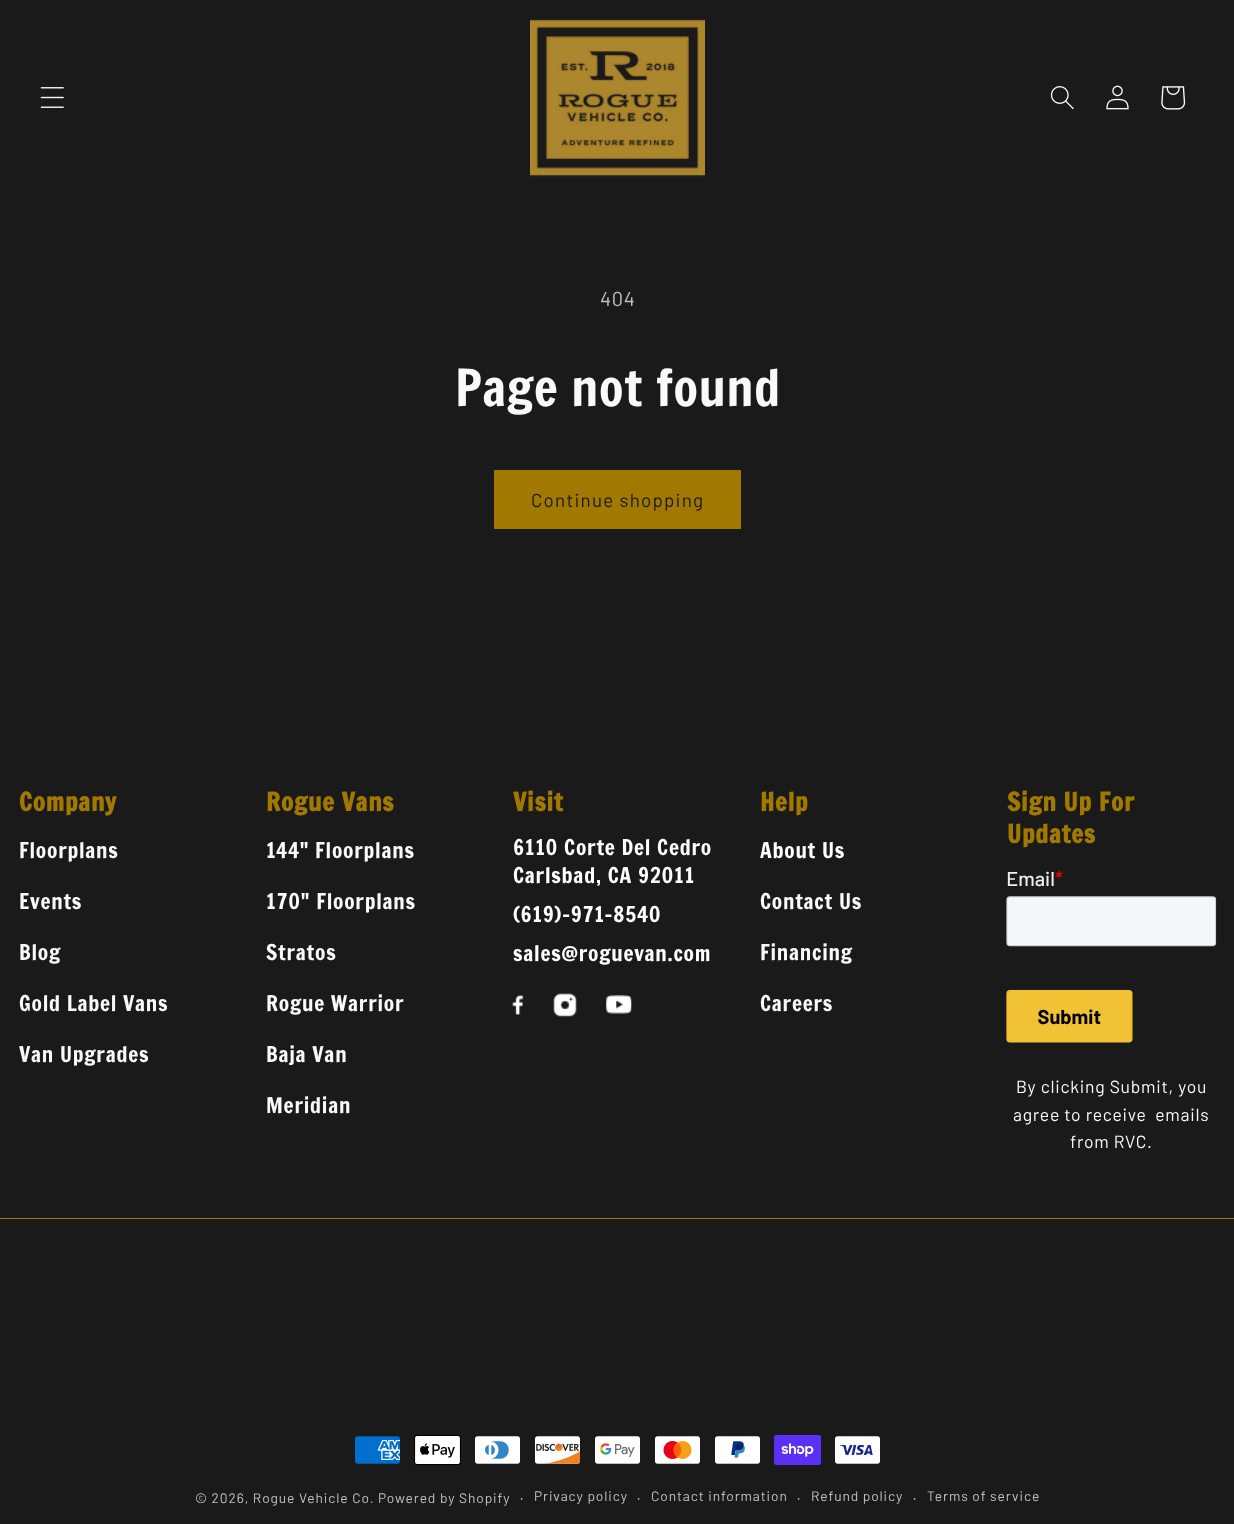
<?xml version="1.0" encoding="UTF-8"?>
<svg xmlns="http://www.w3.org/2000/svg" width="1234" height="1524">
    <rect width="100%" height="100%" fill="#1A1A1A"/>
    <image x="40" y="87" width="24" height="21" href="img_01.png"/>
    <image x="530" y="19" width="175" height="158" href="img_02.png"/>
    <image x="1050" y="86" width="24" height="24" href="img_03.png"/>
    <image x="1106" y="85" width="23" height="25" href="img_04.png"/>
    <image x="1161" y="86" width="25" height="24" href="img_05.png"/>
    <text x="600" y="306" font-family="Barlow" font-size="20" letter-spacing="0.75" fill="#C1C1C1">404</text>
    <text x="455" y="406" font-family="Francois One" font-size="50" letter-spacing="0.75" fill="#F9F9F9">Page not found</text>
    <rect x="494" y="470" width="247" height="59" fill="#A27900"/>
    <text x="531" y="507" font-family="Barlow" font-size="18.75" letter-spacing="1.25" fill="#1A1A1A">Continue shopping</text>
    <text x="19" y="811" font-family="Francois One" font-size="25" font-weight="700" letter-spacing="0.75" fill="#A27900">Company</text>
    <text x="19" y="858" font-family="Francois One" font-size="21.25" letter-spacing="0.75" fill="#F9F9F9">Floorplans</text>
    <text x="19" y="909" font-family="Francois One" font-size="21.25" letter-spacing="0.75" fill="#F9F9F9">Events</text>
    <text x="19" y="960" font-family="Francois One" font-size="21.25" letter-spacing="0.75" fill="#F9F9F9">Blog</text>
    <text x="19" y="1011" font-family="Francois One" font-size="21.25" letter-spacing="0.75" fill="#F9F9F9">Gold Label Vans</text>
    <text x="19" y="1062" font-family="Francois One" font-size="21.25" letter-spacing="0.75" fill="#F9F9F9">Van Upgrades</text>
    <text x="266" y="811" font-family="Francois One" font-size="25" font-weight="700" letter-spacing="0.75" fill="#A27900">Rogue Vans</text>
    <text x="266" y="858" font-family="Francois One" font-size="21.25" letter-spacing="0.75" fill="#F9F9F9">144" Floorplans</text>
    <text x="266" y="909" font-family="Francois One" font-size="21.25" letter-spacing="0.75" fill="#F9F9F9">170" Floorplans</text>
    <text x="266" y="960" font-family="Francois One" font-size="21.25" letter-spacing="0.75" fill="#F9F9F9">Stratos</text>
    <text x="266" y="1011" font-family="Francois One" font-size="21.25" letter-spacing="0.75" fill="#F9F9F9">Rogue Warrior</text>
    <text x="266" y="1062" font-family="Francois One" font-size="21.25" letter-spacing="0.75" fill="#F9F9F9">Baja Van</text>
    <text x="266" y="1113" font-family="Francois One" font-size="21.25" letter-spacing="0.75" fill="#F9F9F9">Meridian</text>
    <text x="513" y="811" font-family="Francois One" font-size="25" font-weight="700" letter-spacing="0.75" fill="#A27900">Visit</text>
    <text font-family="Francois One" font-size="21.25" letter-spacing="0.75" fill="#FFFFFF">
        <tspan x="513" y="855">6110 Corte Del Cedro</tspan>
        <tspan x="513" y="883">Carlsbad, CA 92011</tspan>
        <tspan x="513" y="922">(619)-971-8540</tspan>
        <tspan x="513" y="961">sales@roguevan.com</tspan>
    </text>
    <image x="512" y="995" width="12" height="20" href="img_06.png"/>
    <image x="553" y="993" width="24" height="24" href="img_07.png"/>
    <image x="606" y="995" width="26" height="19" href="img_08.png"/>
    <text x="760" y="811" font-family="Francois One" font-size="25" font-weight="700" letter-spacing="0.75" fill="#A27900">Help</text>
    <text x="760" y="858" font-family="Francois One" font-size="21.25" letter-spacing="0.75" fill="#FFFFFF">About Us</text>
    <text x="760" y="909" font-family="Francois One" font-size="21.25" letter-spacing="0.75" fill="#F9F9F9">Contact Us</text>
    <text x="760" y="960" font-family="Francois One" font-size="21.25" letter-spacing="0.75" fill="#F9F9F9">Financing</text>
    <text x="760" y="1011" font-family="Francois One" font-size="21.25" letter-spacing="0.75" fill="#F9F9F9">Careers</text>
    <text font-family="Francois One" font-size="25" font-weight="700" letter-spacing="0.75" fill="#A27900">
        <tspan x="1007" y="811">Sign Up For</tspan>
        <tspan x="1007" y="843">Updates</tspan>
    </text>
    <image x="1006" y="871" width="211" height="172" href="img_09.png"/>
    <text x="1016" y="1093" font-family="Barlow" font-size="17.5" letter-spacing="0.75" fill="#F9F9F9">By clicking Submit, you</text>
    <text x="1013" y="1121" font-family="Barlow" font-size="17.5" letter-spacing="0.75" fill="#F9F9F9" xml:space="preserve">agree to receive  emails</text>
    <text x="1070" y="1148" font-family="Barlow" font-size="17.5" letter-spacing="0.75" fill="#F9F9F9">from RVC.</text>
    <rect x="0" y="1218" width="1234" height="1" fill="#A27900"/>
    <image x="355" y="1436" width="45" height="28" href="img_10.png"/>
    <image x="414" y="1435" width="47" height="30" href="img_11.png"/>
    <image x="475" y="1436" width="45" height="28" href="img_12.png"/>
    <image x="535" y="1436" width="46" height="28" href="img_13.png"/>
    <image x="595" y="1436" width="45" height="28" href="img_14.png"/>
    <image x="655" y="1436" width="45" height="28" href="img_15.png"/>
    <image x="715" y="1436" width="45" height="28" href="img_16.png"/>
    <image x="774" y="1435" width="47" height="30" href="img_17.png"/>
    <image x="835" y="1436" width="45" height="28" href="img_18.png"/>
    <text x="195" y="1503" font-family="Barlow" font-size="13.75" letter-spacing="0.9" fill="#C1C1C1">© 2026, Rogue Vehicle Co. Powered by Shopify</text>
    <text x="520" y="1503" font-family="Barlow" font-size="15" letter-spacing="0.9" fill="#C1C1C1">·</text>
    <text x="534" y="1501" font-family="Barlow" font-size="13.75" letter-spacing="0.9" fill="#C1C1C1">Privacy policy</text>
    <text x="637" y="1503" font-family="Barlow" font-size="15" letter-spacing="0.9" fill="#C1C1C1">·</text>
    <text x="651" y="1501" font-family="Barlow" font-size="13.75" letter-spacing="0.9" fill="#C1C1C1">Contact information</text>
    <text x="797" y="1503" font-family="Barlow" font-size="15" letter-spacing="0.9" fill="#C1C1C1">·</text>
    <text x="811" y="1501" font-family="Barlow" font-size="13.75" letter-spacing="0.9" fill="#C1C1C1">Refund policy</text>
    <text x="913" y="1503" font-family="Barlow" font-size="15" letter-spacing="0.9" fill="#C1C1C1">·</text>
    <text x="927" y="1501" font-family="Barlow" font-size="13.75" letter-spacing="0.9" fill="#C1C1C1">Terms of service</text>
</svg>
